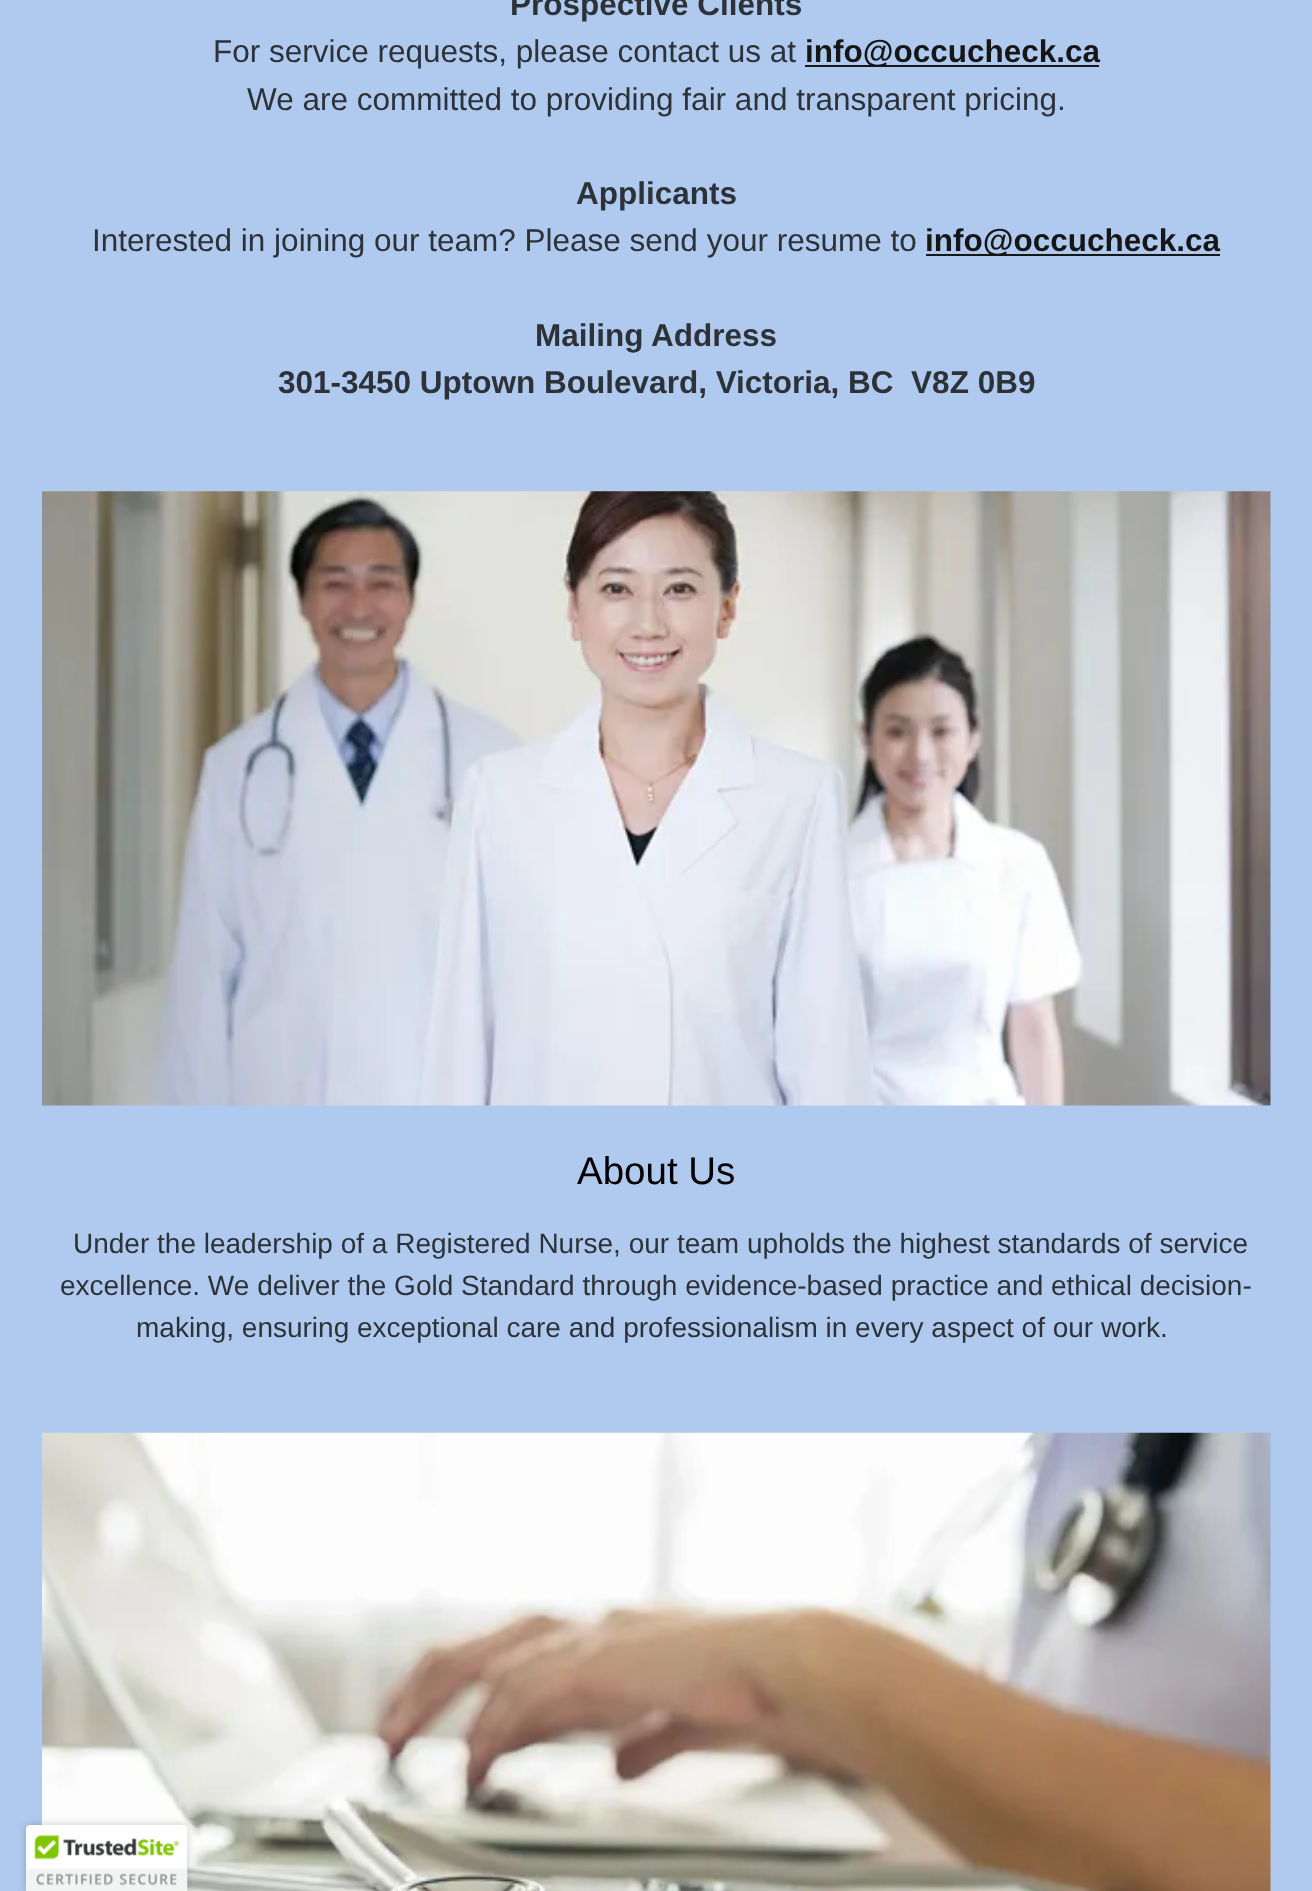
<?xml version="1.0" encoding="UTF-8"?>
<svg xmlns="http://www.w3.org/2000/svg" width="1312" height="1891">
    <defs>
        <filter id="blur1" x="-50%" y="-200%" width="200%" height="500%"><feGaussianBlur stdDeviation="4.5"/></filter>
    </defs>
    <rect width="100%" height="100%" fill="#AFCAEE"/>
    <text x="510" y="15" font-family="Liberation Sans" font-size="31.5" font-weight="700" fill="#2D3238">Prospective Clients</text>
    <text x="213" y="62" font-family="Liberation Sans" font-size="31.5" fill="#2D3238">For service requests, please contact us at</text>
    <rect x="805" y="65" width="294" height="2" fill="#161616"/>
    <text x="805" y="62" font-family="Liberation Sans" font-size="31.5" font-weight="700" fill="#161616">info@occucheck.ca</text>
    <text x="247" y="110" font-family="Liberation Sans" font-size="31.5" fill="#2D3238">We are committed to providing fair and transparent pricing.</text>
    <text x="576" y="204" font-family="Liberation Sans" font-size="31.5" font-weight="700" fill="#2D3238">Applicants</text>
    <text x="92" y="251" font-family="Liberation Sans" font-size="31.5" fill="#2D3238">Interested in joining our team? Please send your resume to</text>
    <rect x="926" y="254" width="294" height="2" fill="#161616"/>
    <text x="925" y="251" font-family="Liberation Sans" font-size="31.5" font-weight="700" fill="#161616">info@occucheck.ca</text>
    <text x="535" y="346" font-family="Liberation Sans" font-size="31.5" font-weight="700" fill="#2D3238">Mailing Address</text>
    <text x="278" y="393" font-family="Liberation Sans" font-size="31.5" font-weight="700" fill="#2D3238" xml:space="preserve">301-3450 Uptown Boulevard, Victoria, BC  V8Z 0B9</text>
    <image x="42" y="491" width="1229" height="615" href="img_01.png"/>
    <text x="577" y="1184" font-family="Liberation Sans" font-size="38.5" fill="#000000">About Us</text>
    <text x="73" y="1253" font-family="Liberation Sans" font-size="28" fill="#2D3238">Under the leadership of a Registered Nurse, our team upholds the highest standards of service</text>
    <text x="60" y="1295" font-family="Liberation Sans" font-size="28" fill="#2D3238">excellence. We deliver the Gold Standard through evidence-based practice and ethical decision-</text>
    <text x="136" y="1337" font-family="Liberation Sans" font-size="28" fill="#2D3238">making, ensuring exceptional care and professionalism in every aspect of our work.</text>
    <image x="42" y="1432" width="1229" height="459" href="img_02.png"/>
    <rect x="26" y="1825" width="161" height="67" rx="4" fill="#000000" fill-opacity="0.2" filter="url(#blur1)"/>
    <path d="M 30 1825 H 183 C 185 1825 187 1827 187 1829 V 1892 H 26 V 1829 C 26 1827 28 1825 30 1825 Z" fill="#FFFFFF"/>
    <image x="26" y="1825" width="162" height="66" href="img_03.png"/>
</svg>
